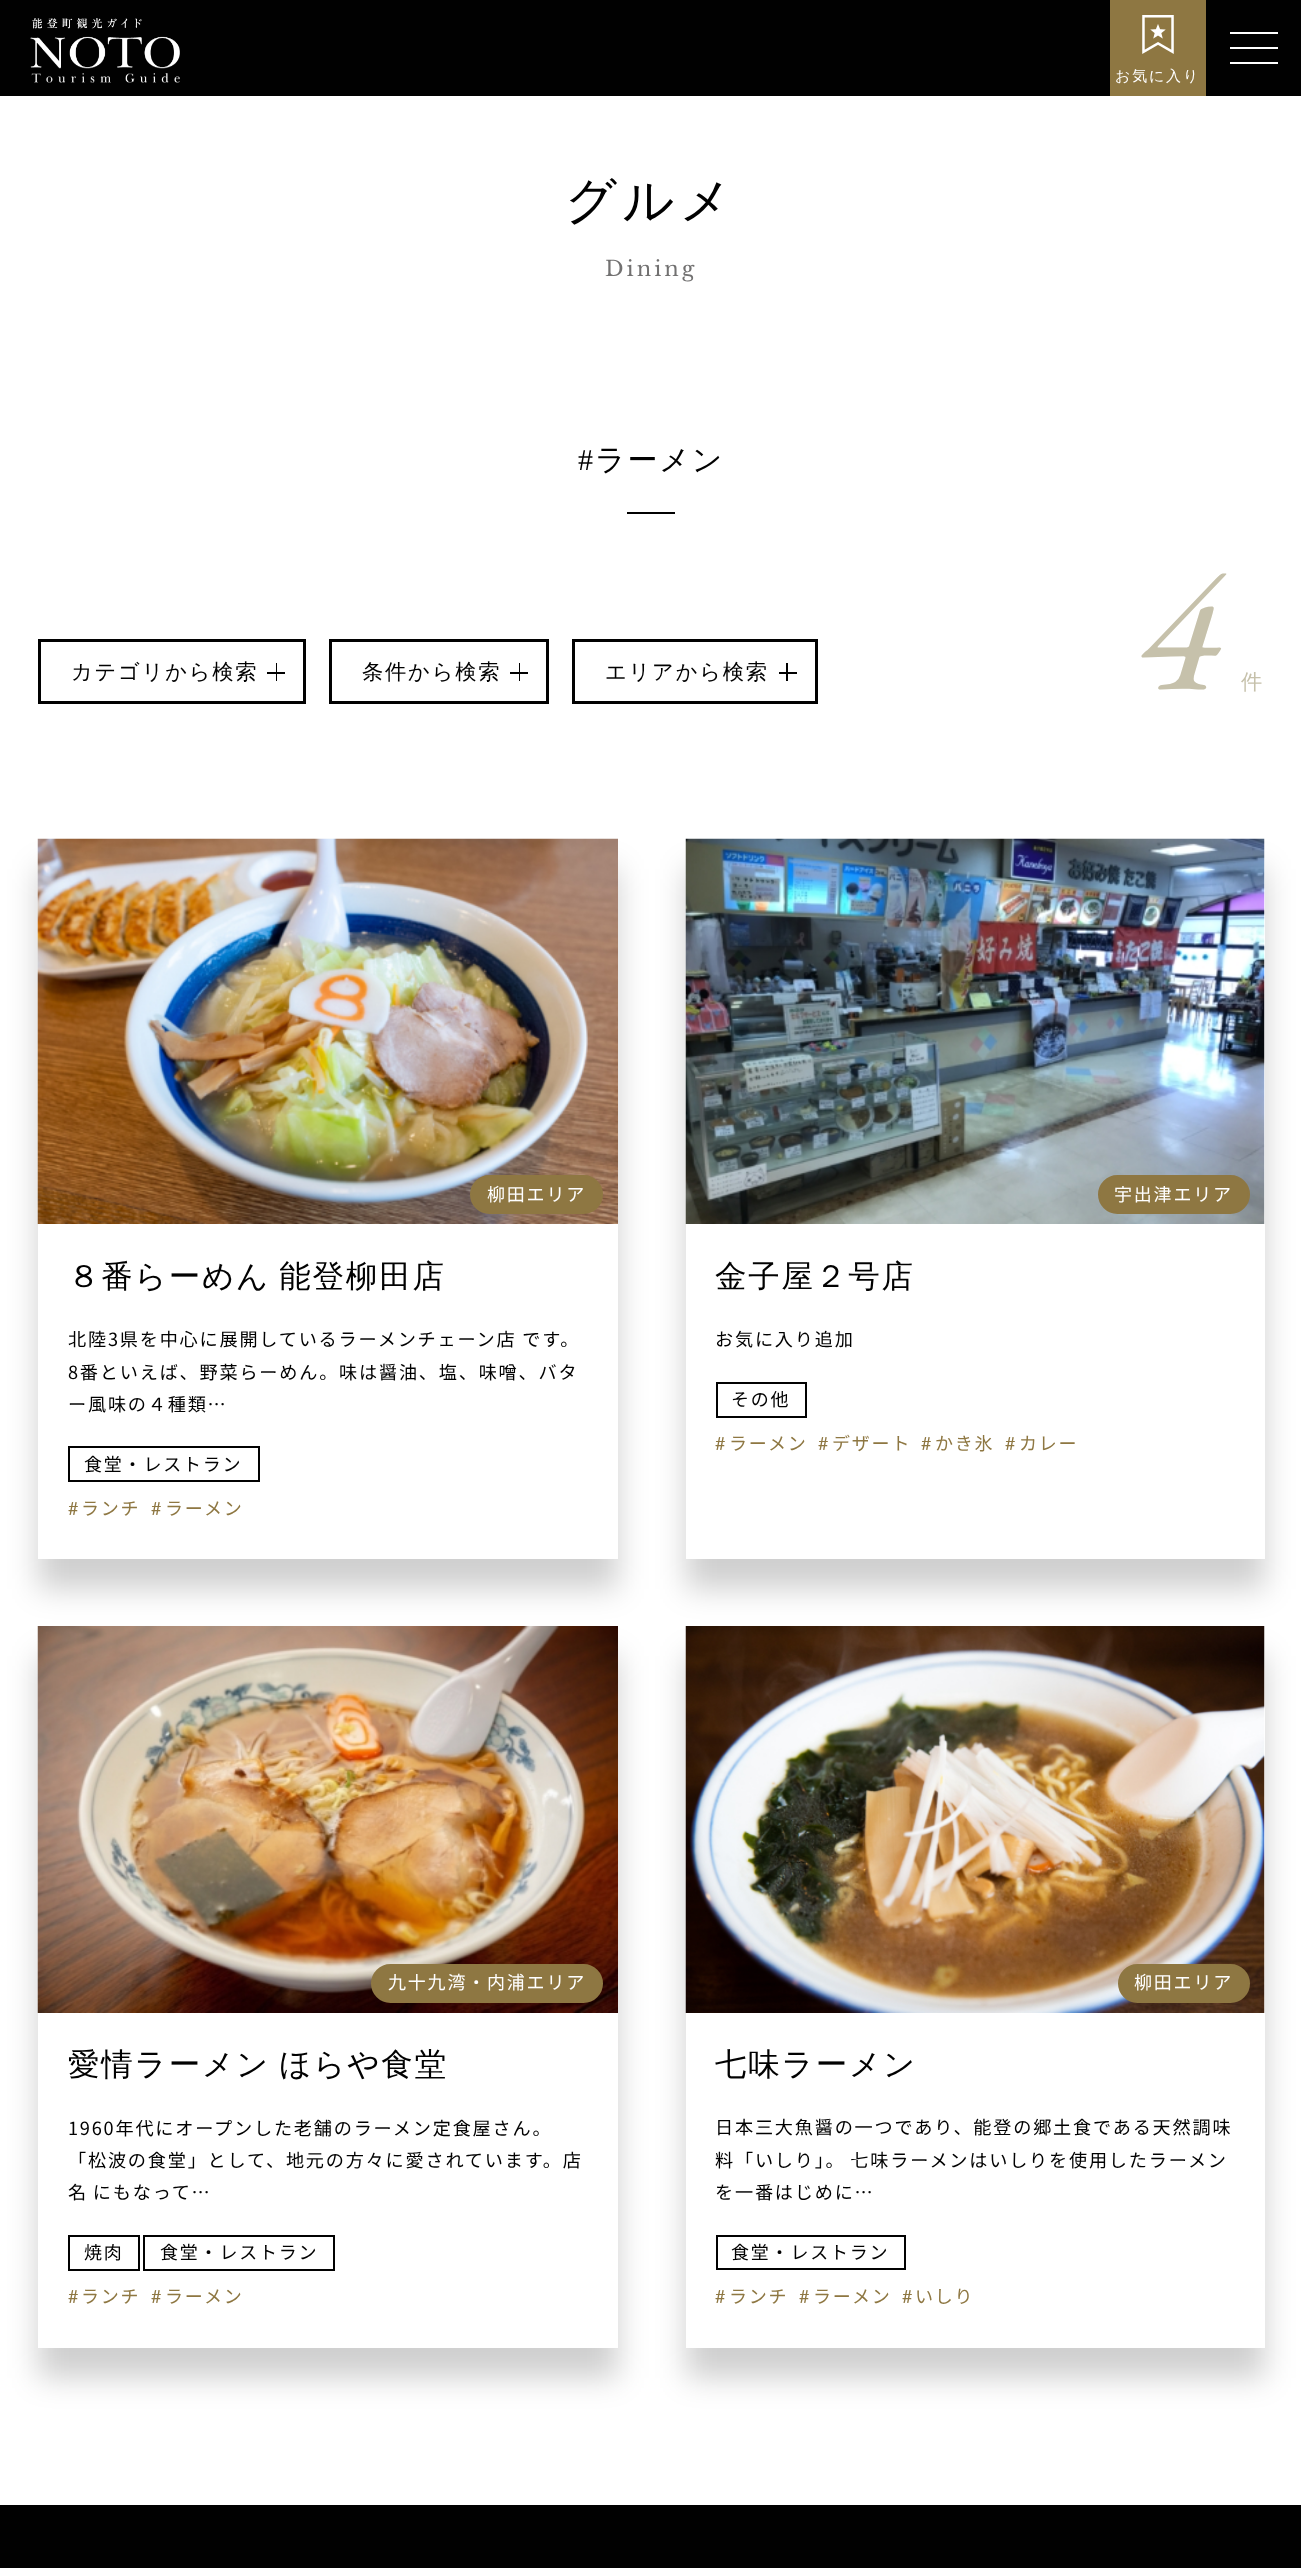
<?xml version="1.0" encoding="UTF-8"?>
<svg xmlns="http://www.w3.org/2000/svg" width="1301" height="2568">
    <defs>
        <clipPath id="clip1"><path d="M 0 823 H 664 V 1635 H 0 Z M 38 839 H 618 V 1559 H 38 Z" clip-rule="evenodd"/></clipPath>
        <filter id="blur1" x="-50%" y="-200%" width="200%" height="500%"><feGaussianBlur stdDeviation="15"/></filter>
        <clipPath id="clip2"><path d="M 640 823 H 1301 V 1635 H 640 Z M 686 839 H 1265 V 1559 H 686 Z" clip-rule="evenodd"/></clipPath>
        <clipPath id="clip3"><path d="M 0 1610 H 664 V 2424 H 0 Z M 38 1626 H 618 V 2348 H 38 Z" clip-rule="evenodd"/></clipPath>
        <clipPath id="clip4"><path d="M 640 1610 H 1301 V 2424 H 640 Z M 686 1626 H 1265 V 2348 H 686 Z" clip-rule="evenodd"/></clipPath>
    </defs>
    <rect width="100%" height="100%" fill="#FFFFFF"/>
    <rect x="0" y="0" width="1301" height="96" fill="#010101"/>
    <image x="30" y="18" width="150" height="65" href="img_01.png"/>
    <rect x="1230" y="32" width="48" height="2" fill="#FFFFFF"/>
    <rect x="1230" y="47" width="48" height="2" fill="#FFFFFF"/>
    <rect x="1230" y="62" width="48" height="2" fill="#FFFFFF"/>
    <rect x="1110" y="0" width="96" height="96" fill="#8E7742"/>
    <image x="1142" y="15" width="32" height="39" href="img_02.png"/>
    <text x="1115" y="81" font-family="WenQuanYi Zen Hei" font-size="15" font-weight="500" letter-spacing="1.8" fill="#FFFFFF">お気に入り</text>
    <text x="565" y="218" font-family="WenQuanYi Zen Hei" font-size="51" font-weight="500" letter-spacing="5" fill="#010101">グルメ</text>
    <text x="605" y="276" font-family="Libre Baskerville" font-size="21" letter-spacing="3" fill="#727171">Dining</text>
    <text x="578" y="470" font-family="Liberation Serif" font-size="30" letter-spacing="1.8" fill="#010101">#</text>
    <text x="595" y="470" font-family="WenQuanYi Zen Hei" font-size="30" font-weight="500" letter-spacing="1.8" fill="#010101">ラーメン</text>
    <rect x="627" y="512" width="48" height="2" fill="#010101"/>
    <rect x="39.5" y="640.5" width="265" height="62" fill="none" stroke="#010101" stroke-width="3"/>
    <text x="71" y="679" font-family="WenQuanYi Zen Hei" font-size="21.25" font-weight="500" letter-spacing="1.8" fill="#010101">カテゴリから検索</text>
    <rect x="276" y="663" width="1" height="18" fill="#010101"/>
    <rect x="267" y="672" width="18" height="2" fill="#010101"/>
    <rect x="330.5" y="640.5" width="217" height="62" fill="none" stroke="#010101" stroke-width="3"/>
    <text x="362" y="679" font-family="WenQuanYi Zen Hei" font-size="21.25" font-weight="500" letter-spacing="1.8" fill="#010101">条件から検索</text>
    <rect x="519" y="663" width="1" height="18" fill="#010101"/>
    <rect x="510" y="672" width="18" height="2" fill="#010101"/>
    <rect x="573.5" y="640.5" width="243" height="62" fill="none" stroke="#010101" stroke-width="3"/>
    <text x="605" y="679" font-family="WenQuanYi Zen Hei" font-size="21.25" font-weight="500" letter-spacing="1.8" fill="#010101">エリアから検索</text>
    <rect x="786" y="663" width="2" height="18" fill="#010101"/>
    <rect x="779" y="672" width="18" height="2" fill="#010101"/>
    <text x="1138" y="689" font-family="EB Garamond" font-size="180" font-style="italic" letter-spacing="1.8" fill="#C6C1AB">4</text>
    <text x="1241" y="689" font-family="WenQuanYi Zen Hei" font-size="21.25" font-weight="500" letter-spacing="1.8" fill="#C6C1AB">件</text>
    <g clip-path="url(#clip1)">
        <rect x="38" y="869" width="580" height="720" fill="#000000" fill-opacity="0.19" filter="url(#blur1)"/>
    </g>
    <image x="37" y="838" width="581" height="386" href="img_03.png"/>
    <rect x="471" y="1176" width="131" height="37" rx="18.5" fill="#8E7742" stroke="#8E7742" stroke-width="2"/>
    <text x="487" y="1201" font-family="Noto Sans JP" font-size="18" letter-spacing="1.8" fill="#FFFFFF">柳田エリア</text>
    <text x="68" y="1287" word-spacing="-2" font-family="WenQuanYi Zen Hei" font-size="31.5" font-weight="500" letter-spacing="1.8" fill="#010101">８番らーめん 能登柳田店</text>
    <text font-family="Noto Sans JP" font-size="18.15" letter-spacing="1.8" fill="#010101">
        <tspan x="68" y="1346">北陸3県を中心に展開しているラーメンチェーン店 です。</tspan>
        <tspan x="68" y="1379">8番といえば、野菜らーめん。味は醤油、塩、味噌、バタ</tspan>
        <tspan x="68" y="1411">ー風味の４種類…</tspan>
    </text>
    <rect x="69" y="1447" width="190" height="34" fill="none" stroke="#010101" stroke-width="2"/>
    <text x="84" y="1471" font-family="Noto Sans JP" font-size="18" letter-spacing="1.8" fill="#010101">食堂・レストラン</text>
    <text x="68" y="1515" font-family="Lato" font-size="18" fill="#8E7742">#</text>
    <text x="81" y="1515" font-family="Noto Sans JP" font-size="18" letter-spacing="1.8" fill="#8E7742">ランチ</text>
    <text x="151" y="1515" font-family="Lato" font-size="18" fill="#8E7742">#</text>
    <text x="165" y="1515" font-family="Noto Sans JP" font-size="18" letter-spacing="1.8" fill="#8E7742">ラーメン</text>
    <g clip-path="url(#clip2)">
        <rect x="686" y="869" width="579" height="720" fill="#000000" fill-opacity="0.19" filter="url(#blur1)"/>
    </g>
    <image x="685" y="838" width="580" height="386" href="img_04.png"/>
    <rect x="1099" y="1176" width="150" height="37" rx="18.5" fill="#8E7742" stroke="#8E7742" stroke-width="2"/>
    <text x="1114" y="1201" font-family="Noto Sans JP" font-size="18" letter-spacing="1.8" fill="#FFFFFF">宇出津エリア</text>
    <text x="715" y="1287" font-family="WenQuanYi Zen Hei" font-size="31.5" font-weight="500" letter-spacing="1.8" fill="#010101">金子屋２号店</text>
    <text x="715" y="1346" font-family="Noto Sans JP" font-size="18.15" letter-spacing="1.8" fill="#010101">お気に入り追加</text>
    <rect x="717" y="1383" width="89" height="34" fill="none" stroke="#010101" stroke-width="2"/>
    <text x="731" y="1406" font-family="Noto Sans JP" font-size="18" letter-spacing="1.8" fill="#010101">その他</text>
    <text x="715" y="1450" font-family="Lato" font-size="18" fill="#8E7742">#</text>
    <text x="729" y="1450" font-family="Noto Sans JP" font-size="18" letter-spacing="1.8" fill="#8E7742">ラーメン</text>
    <text x="818" y="1450" font-family="Lato" font-size="18" fill="#8E7742">#</text>
    <text x="832" y="1450" font-family="Noto Sans JP" font-size="18" letter-spacing="1.8" fill="#8E7742">デザート</text>
    <text x="921" y="1450" font-family="Lato" font-size="18" fill="#8E7742">#</text>
    <text x="935" y="1450" font-family="Noto Sans JP" font-size="18" letter-spacing="1.8" fill="#8E7742">かき氷</text>
    <text x="1005" y="1450" font-family="Lato" font-size="18" fill="#8E7742">#</text>
    <text x="1019" y="1450" font-family="Noto Sans JP" font-size="18" letter-spacing="1.8" fill="#8E7742">カレー</text>
    <g clip-path="url(#clip3)">
        <rect x="38" y="1656" width="580" height="722" fill="#000000" fill-opacity="0.19" filter="url(#blur1)"/>
    </g>
    <image x="37" y="1626" width="581" height="387" href="img_05.png"/>
    <rect x="372" y="1965" width="230" height="37" rx="18.5" fill="#8E7742" stroke="#8E7742" stroke-width="2"/>
    <text x="388" y="1989" font-family="Noto Sans JP" font-size="18" letter-spacing="1.8" fill="#FFFFFF">九十九湾・内浦エリア</text>
    <text x="68" y="2075" word-spacing="-2" font-family="WenQuanYi Zen Hei" font-size="31.5" font-weight="500" letter-spacing="1.8" fill="#010101">愛情ラーメン ほらや食堂</text>
    <text font-family="Noto Sans JP" font-size="18.15" letter-spacing="1.8" fill="#010101">
        <tspan x="68" y="2135">1960年代にオープンした老舗のラーメン定食屋さん。</tspan>
        <tspan x="68" y="2167">「松波の食堂」として、地元の方々に愛されています。店</tspan>
        <tspan x="68" y="2199" word-spacing="-1">名 にもなって…</tspan>
    </text>
    <rect x="69" y="2236" width="70" height="34" fill="none" stroke="#010101" stroke-width="2"/>
    <text x="84" y="2259" font-family="Noto Sans JP" font-size="18" letter-spacing="1.8" fill="#010101">焼肉</text>
    <rect x="144" y="2236" width="190" height="34" fill="none" stroke="#010101" stroke-width="2"/>
    <text x="160" y="2259" font-family="Noto Sans JP" font-size="18" letter-spacing="1.8" fill="#010101">食堂・レストラン</text>
    <text x="68" y="2303" font-family="Lato" font-size="18" fill="#8E7742">#</text>
    <text x="81" y="2303" font-family="Noto Sans JP" font-size="18" letter-spacing="1.8" fill="#8E7742">ランチ</text>
    <text x="151" y="2303" font-family="Lato" font-size="18" fill="#8E7742">#</text>
    <text x="165" y="2303" font-family="Noto Sans JP" font-size="18" letter-spacing="1.8" fill="#8E7742">ラーメン</text>
    <g clip-path="url(#clip4)">
        <rect x="686" y="1656" width="579" height="722" fill="#000000" fill-opacity="0.19" filter="url(#blur1)"/>
    </g>
    <image x="685" y="1626" width="580" height="387" href="img_06.png"/>
    <rect x="1119" y="1965" width="130" height="37" rx="18.5" fill="#8E7742" stroke="#8E7742" stroke-width="2"/>
    <text x="1134" y="1989" font-family="Noto Sans JP" font-size="18" letter-spacing="1.8" fill="#FFFFFF">柳田エリア</text>
    <text x="715" y="2075" font-family="WenQuanYi Zen Hei" font-size="31.5" font-weight="500" letter-spacing="1.8" fill="#010101">七味ラーメン</text>
    <text font-family="Noto Sans JP" font-size="18.15" letter-spacing="1.8" fill="#010101">
        <tspan x="715" y="2134">日本三大魚醤の一つであり、能登の郷土食である天然調味</tspan>
        <tspan x="715" y="2167" word-spacing="-1">料「いしり」。 七味ラーメンはいしりを使用したラーメン</tspan>
        <tspan x="715" y="2199">を一番はじめに…</tspan>
    </text>
    <rect x="717" y="2236" width="188" height="33" fill="none" stroke="#010101" stroke-width="2"/>
    <text x="731" y="2259" font-family="Noto Sans JP" font-size="18" letter-spacing="1.8" fill="#010101">食堂・レストラン</text>
    <text x="715" y="2303" font-family="Lato" font-size="18" fill="#8E7742">#</text>
    <text x="729" y="2303" font-family="Noto Sans JP" font-size="18" letter-spacing="1.8" fill="#8E7742">ランチ</text>
    <text x="799" y="2303" font-family="Lato" font-size="18" fill="#8E7742">#</text>
    <text x="813" y="2303" font-family="Noto Sans JP" font-size="18" letter-spacing="1.8" fill="#8E7742">ラーメン</text>
    <text x="902" y="2303" font-family="Lato" font-size="18" fill="#8E7742">#</text>
    <text x="915" y="2303" font-family="Noto Sans JP" font-size="18" letter-spacing="1.8" fill="#8E7742">いしり</text>
    <rect x="0" y="2505" width="1301" height="63" fill="#010101"/>
</svg>
